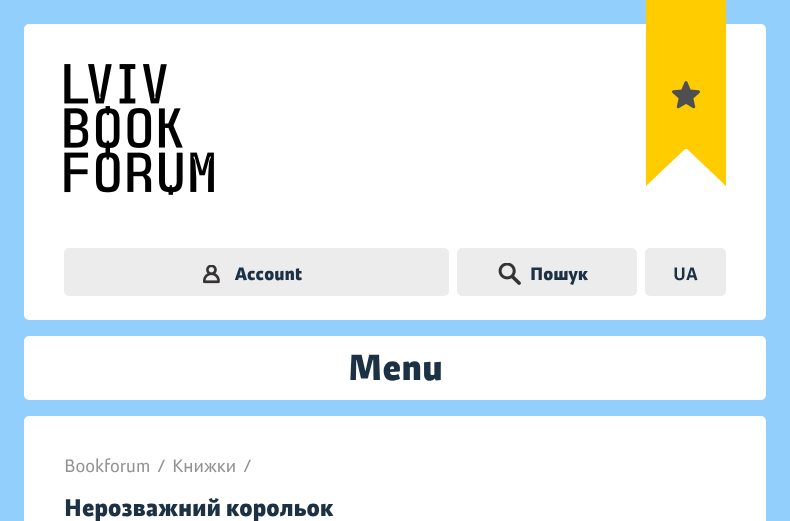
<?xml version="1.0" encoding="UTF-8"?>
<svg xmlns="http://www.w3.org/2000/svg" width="790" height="521">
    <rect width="100%" height="100%" fill="#92CFFC"/>
    <rect x="24" y="24" width="742" height="296" rx="5" fill="#FFFFFF"/>
    <image x="64" y="64" width="150" height="131" href="img_01.png"/>
    <rect x="646" y="0" width="80" height="149" fill="#FFCC00"/>
    <path d="M 726 148 V 186 L 686 148 Z" fill="#FFCC00"/>
    <path d="M 646 186 V 148 H 686 Z" fill="#FFCC00"/>
    <image x="672" y="81" width="28" height="28" href="img_02.png"/>
    <rect x="64" y="248" width="385" height="48" rx="5" fill="#ECECEC"/>
    <image x="203" y="265" width="17" height="19" href="img_03.png"/>
    <text x="235" y="280" font-family="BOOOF" font-size="18" font-weight="900" fill="#1C3244">Account</text>
    <rect x="457" y="248" width="180" height="48" rx="5" fill="#ECECEC"/>
    <image x="498" y="263" width="23" height="22" href="img_04.png"/>
    <text x="530" y="280" font-family="BOOOF" font-size="18" font-weight="900" fill="#1C3244">Пошук</text>
    <rect x="645" y="248" width="81" height="48" rx="5" fill="#ECECEC"/>
    <text x="673" y="280" font-family="BOOOF" font-size="18" font-weight="700" fill="#1C3244">UA</text>
    <rect x="24" y="336" width="742" height="64" rx="5" fill="#FFFFFF"/>
    <text x="348" y="380" font-family="BOOOF" font-size="36" font-weight="900" fill="#1C3244">Menu</text>
    <rect x="24" y="416" width="742" height="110" rx="5" fill="#FFFFFF"/>
    <text x="64" y="472" font-family="BOOOF" font-size="18" fill="#929292">Bookforum</text>
    <text x="158" y="472" font-family="BOOOF" font-size="18" fill="#929292">/</text>
    <text x="172" y="472" font-family="BOOOF" font-size="18" fill="#929292">Книжки</text>
    <text x="244" y="472" font-family="BOOOF" font-size="18" fill="#929292">/</text>
    <text x="64" y="516" font-family="BOOOF" font-size="24" font-weight="900" fill="#1C3244">Нерозважний корольок</text>
</svg>
